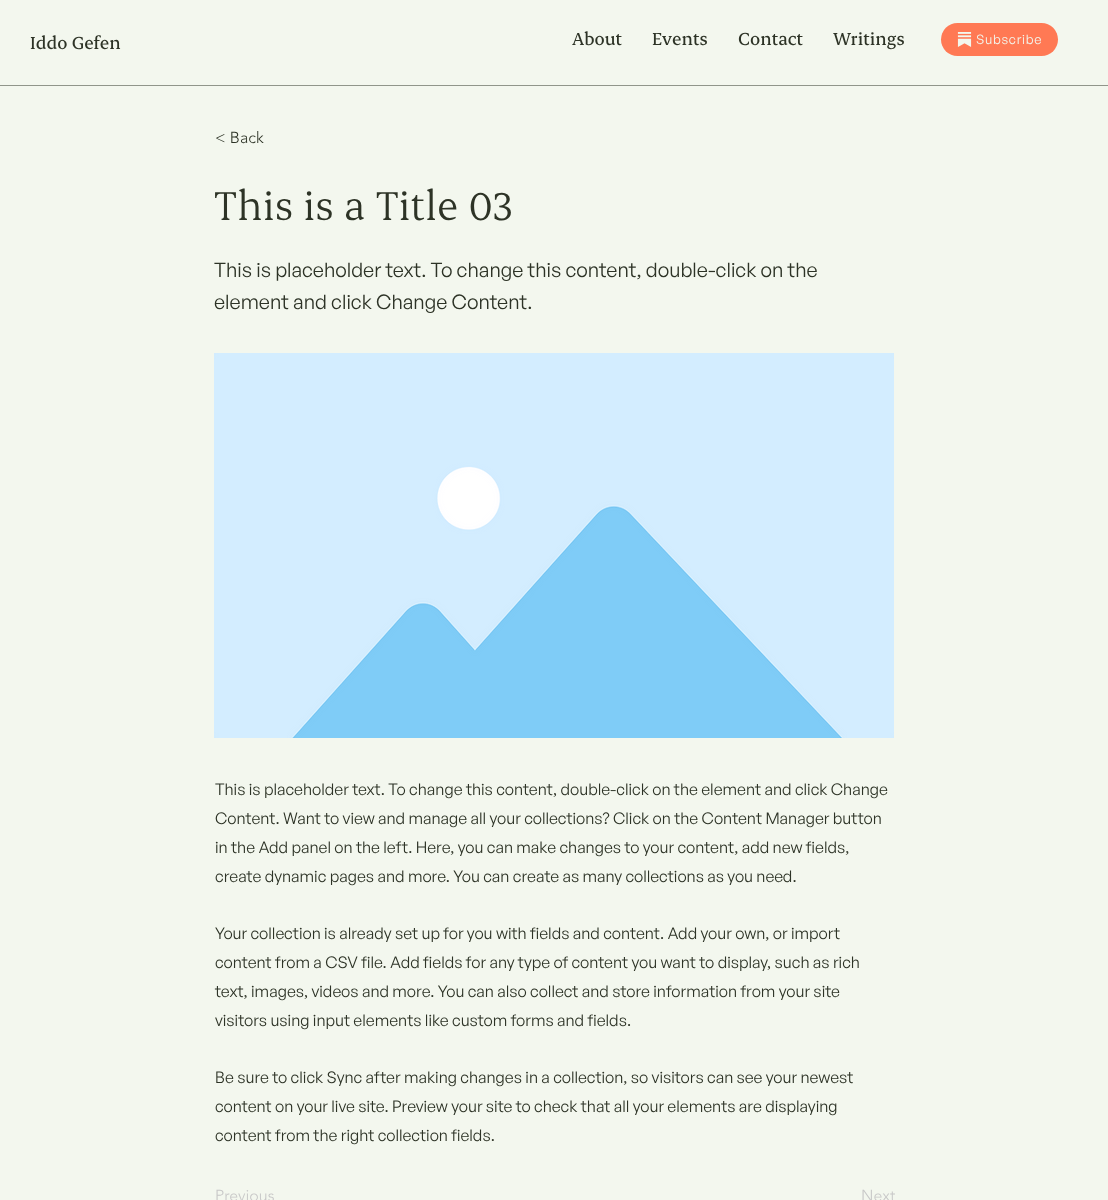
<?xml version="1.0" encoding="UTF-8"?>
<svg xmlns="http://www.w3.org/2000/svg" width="1108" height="1200">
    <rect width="100%" height="100%" fill="#F3F7EE"/>
    <text x="30" y="49" font-family="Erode" font-size="20" font-weight="500" fill="#2D3326">Iddo Gefen</text>
    <text x="572" y="45" font-family="Erode" font-size="20" font-weight="500" fill="#2D3326">About</text>
    <text x="652" y="45" font-family="Erode" font-size="20" font-weight="500" fill="#2D3326">Events</text>
    <text x="738" y="45" font-family="Erode" font-size="20" font-weight="500" fill="#2D3326">Contact</text>
    <text x="833" y="45" font-family="Erode" font-size="20" font-weight="500" fill="#2D3326">Writings</text>
    <rect x="941" y="23" width="117" height="33" rx="16.5" fill="#FF7954"/>
    <image x="957" y="32" width="15" height="15" href="img_01.png"/>
    <text x="976" y="44" font-family="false" font-size="13" letter-spacing="0.75" fill="#F3F7EE">Subscribe</text>
    <rect x="0" y="85" width="1108" height="1" fill="#90958A"/>
    <text x="215" y="143" font-family="'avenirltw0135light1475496'" font-size="16" font-weight="300" fill="#2D3326">&lt; Back</text>
    <text x="214" y="220" font-family="Erode" font-size="46" fill="#2D3326">This is a Title 03</text>
    <text font-family="false" font-size="20" fill="#2D3326">
        <tspan x="214" y="277">This is placeholder text. To change this content, double-click on the</tspan>
        <tspan x="214" y="309">element and click Change Content.</tspan>
    </text>
    <image x="214" y="353" width="680" height="385" href="img_02.png"/>
    <text font-family="false" font-size="16" fill="#2D3326">
        <tspan x="215" y="795">This is placeholder text. To change this content, double-click on the element and click Change</tspan>
        <tspan x="215" y="824">Content. Want to view and manage all your collections? Click on the Content Manager button</tspan>
        <tspan x="215" y="853">in the Add panel on the left. Here, you can make changes to your content, add new fields,</tspan>
        <tspan x="215" y="882">create dynamic pages and more. You can create as many collections as you need.</tspan>
    </text>
    <text font-family="false" font-size="16" fill="#2D3326">
        <tspan x="215" y="939">Your collection is already set up for you with fields and content. Add your own, or import</tspan>
        <tspan x="215" y="968">content from a CSV file. Add fields for any type of content you want to display, such as rich</tspan>
        <tspan x="215" y="997">text, images, videos and more. You can also collect and store information from your site</tspan>
        <tspan x="215" y="1026">visitors using input elements like custom forms and fields.</tspan>
    </text>
    <text font-family="false" font-size="16" fill="#2D3326">
        <tspan x="215" y="1083">Be sure to click Sync after making changes in a collection, so visitors can see your newest</tspan>
        <tspan x="215" y="1112">content on your live site. Preview your site to check that all your elements are displaying</tspan>
        <tspan x="215" y="1141">content from the right collection fields.</tspan>
    </text>
    <text x="215" y="1201" font-family="'avenirltw0135light1475496'" font-size="16" font-weight="300" fill="#C7C7C7">Previous</text>
    <text x="861" y="1201" font-family="'avenirltw0135light1475496'" font-size="16" font-weight="300" fill="#C7C7C7">Next</text>
</svg>
